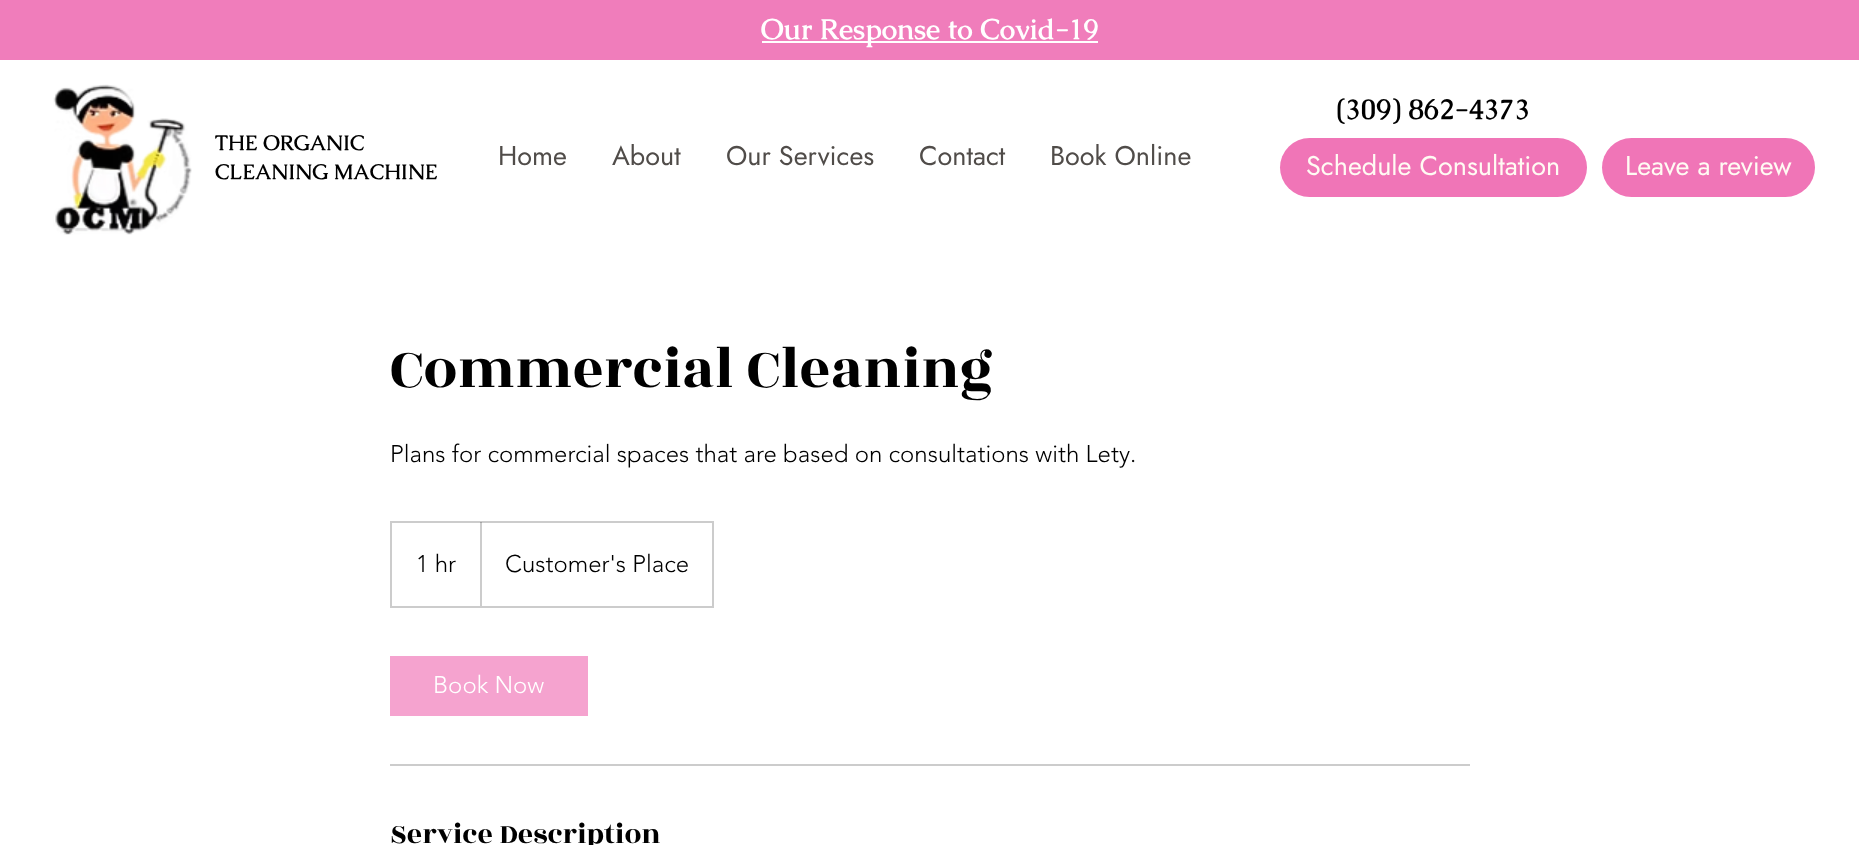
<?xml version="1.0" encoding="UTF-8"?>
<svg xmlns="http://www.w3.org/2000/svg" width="1859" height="845">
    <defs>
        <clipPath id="clip1"><rect x="392" y="522" width="321" height="84"/></clipPath>
    </defs>
    <rect width="100%" height="100%" fill="#FFFFFF"/>
    <rect x="0" y="0" width="1859" height="60" fill="#F07DBB"/>
    <rect x="762" y="41" width="336" height="2" fill="#FFFFFF"/>
    <text x="761" y="39" font-family="Caudex" font-size="28.5" font-weight="700" fill="#FFFFFF">Our Response to Covid-19</text>
    <image x="53" y="84" width="139" height="151" href="img_01.png"/>
    <text font-family="Caudex" font-size="21" font-weight="700" fill="#000000">
        <tspan x="215" y="150">THE ORGANIC</tspan>
        <tspan x="215" y="179">CLEANING MACHINE</tspan>
    </text>
    <text x="498" y="165" font-family="Jost" font-size="27" fill="#504C49">Home</text>
    <text x="612" y="165" font-family="Jost" font-size="27" fill="#504C49">About</text>
    <text x="726" y="165" font-family="Jost" font-size="27" fill="#504C49">Our Services</text>
    <text x="919" y="165" font-family="Jost" font-size="27" fill="#504C49">Contact</text>
    <text x="1050" y="165" font-family="Jost" font-size="27" fill="#504C49">Book Online</text>
    <text x="1336" y="119" font-family="Caudex" font-size="28.5" font-weight="700" fill="#000000">(309) 862-4373</text>
    <rect x="1280" y="138" width="307" height="59" rx="29.5" fill="#F075B7"/>
    <text x="1306" y="175" font-family="Jost" font-size="27" fill="#FFFBF3">Schedule Consultation</text>
    <rect x="1602" y="138" width="213" height="59" rx="29.5" fill="#F075B7"/>
    <text x="1625" y="175" font-family="Jost" font-size="27" fill="#FFFBF3">Leave a review</text>
    <text x="390" y="387" font-family="Rozha One" font-size="60" fill="#000000">Commercial Cleaning</text>
    <text x="390" y="462" font-family="'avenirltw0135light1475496'" font-size="24" font-weight="300" fill="#000000">Plans for commercial spaces that are based on consultations with Lety.</text>
    <rect x="391" y="522" width="322" height="85" fill="none" stroke="#CCCCCC" stroke-width="2"/>
    <text x="416" y="572" font-family="'avenirltw0135light1475496'" font-size="24" font-weight="300" fill="#000000">1 hr</text>
    <g clip-path="url(#clip1)">
        <path d="M 480 606 V 520 L 482 522 V 606 Z" fill="#000000" fill-opacity="0.2"/>
    </g>
    <text x="505" y="572" font-family="'avenirltw0135light1475496'" font-size="24" font-weight="300" fill="#000000">Customer's Place</text>
    <rect x="390" y="656" width="198" height="60" fill="#F5A3CF"/>
    <text x="433" y="693" font-family="'avenirltw0135light1475496'" font-size="24" font-weight="300" fill="#FFFFFF">Book Now</text>
    <rect x="390" y="764" width="1080" height="2" fill="#CCCCCC"/>
    <text x="390" y="843" font-family="Rozha One" font-size="30" fill="#000000">Service Description</text>
</svg>
